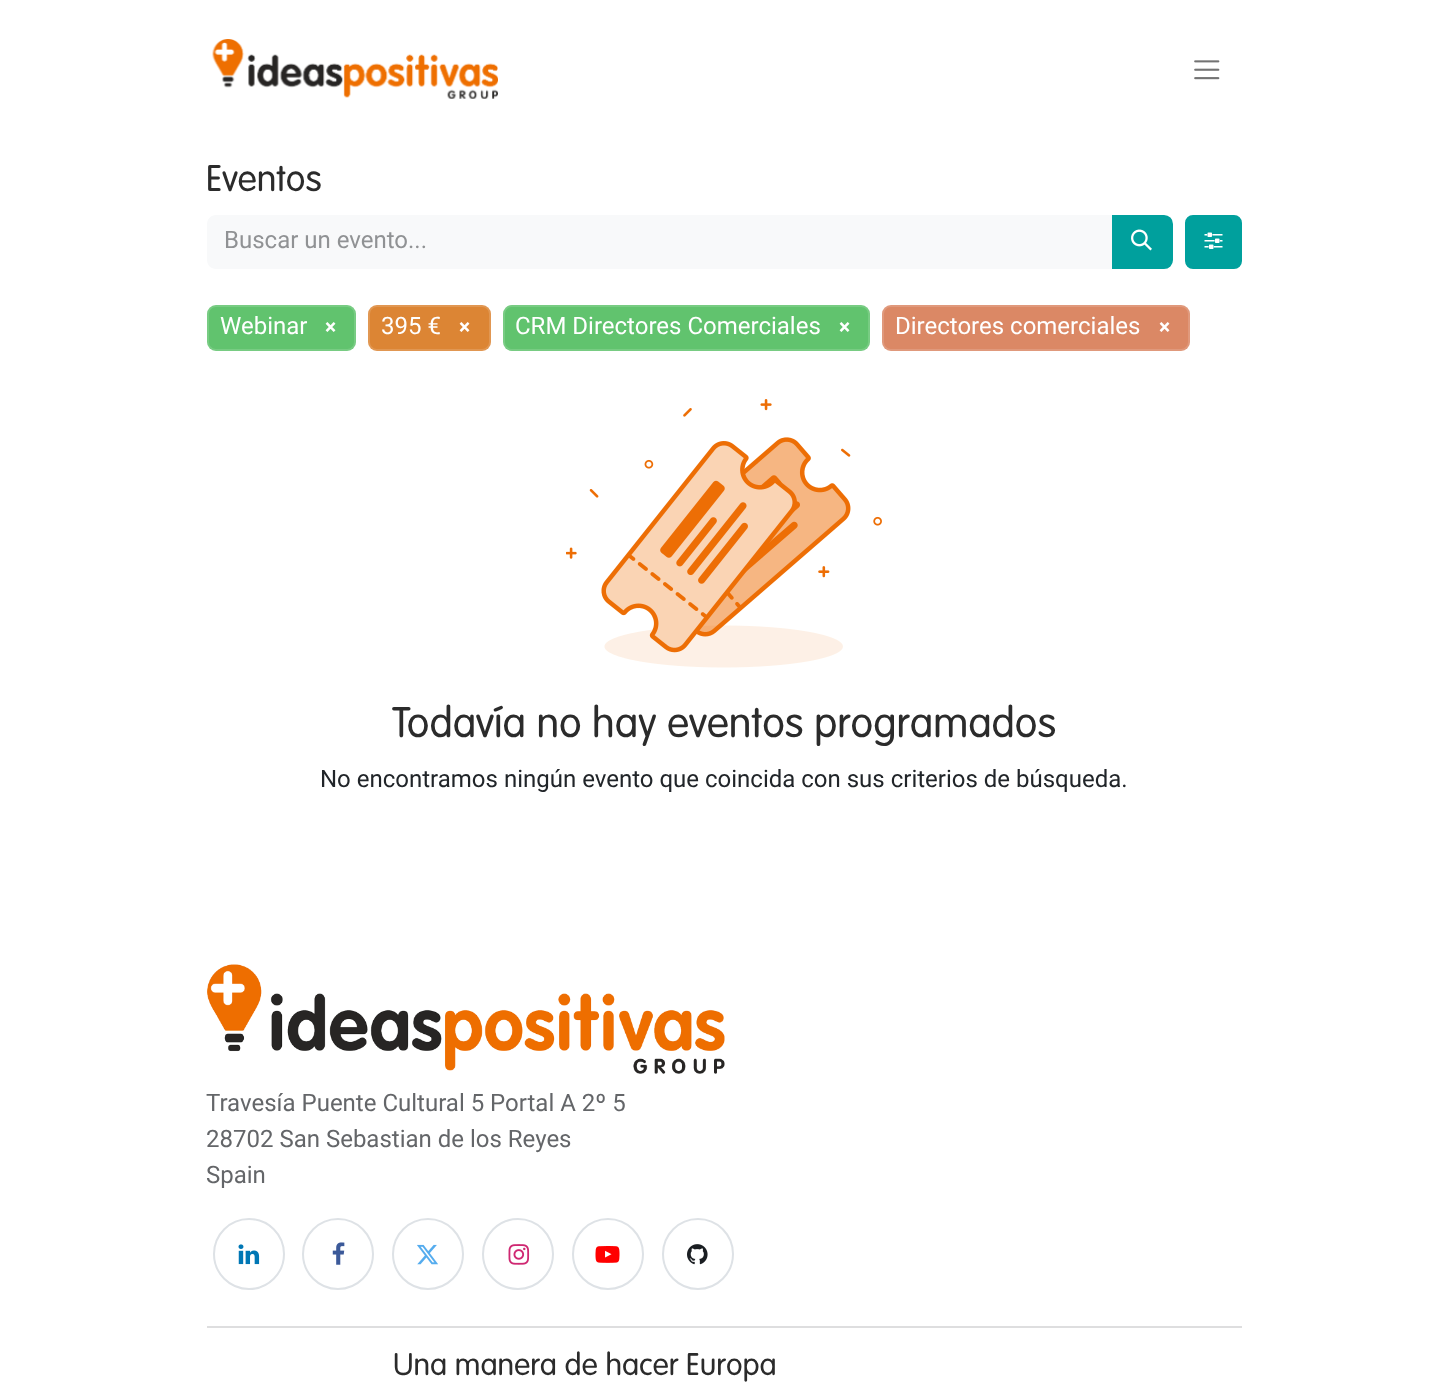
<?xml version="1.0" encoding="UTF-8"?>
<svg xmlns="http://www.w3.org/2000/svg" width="1447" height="1386">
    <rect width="100%" height="100%" fill="#FFFFFF"/>
    <image x="212" y="39" width="286" height="60" href="img_01.png"/>
    <image x="1194" y="60" width="26" height="20" href="img_02.png"/>
    <text x="206" y="191" font-family="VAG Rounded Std" font-size="36.5" font-weight="300" fill="#2B2B2B">Eventos</text>
    <path d="M 216 215 H 1113 V 269 H 216 C 211 269 207 265 207 260 V 224 C 207 219 211 215 216 215 Z" fill="#F8F9FA"/>
    <text x="224" y="248" font-family="Roboto" font-size="24" fill="#909294">Buscar un evento...</text>
    <path d="M 1113 216 H 1164 C 1168.5 216 1172 219.5 1172 224 V 260 C 1172 264.5 1168.5 268 1164 268 H 1113 Z" fill="#00A09D" stroke="#00A09D" stroke-width="2"/>
    <image x="1131" y="229" width="21" height="22" href="img_03.png"/>
    <rect x="1186" y="216" width="55" height="52" rx="7" fill="#00A09D" stroke="#00A09D" stroke-width="2"/>
    <image x="1204" y="232" width="19" height="17" href="img_04.png"/>
    <rect x="207" y="305" width="149" height="46" rx="9" fill="#61C36E"/>
    <rect x="208" y="306" width="147" height="44" rx="8" fill="none" stroke="#FFFFFF" stroke-opacity="0.15" stroke-width="2"/>
    <text x="220" y="334" font-family="Roboto" font-size="24" fill="#FFFFFF">Webinar</text>
    <text x="325" y="334" font-family="Roboto" font-size="21" font-weight="700" fill="#FFFFFF">×</text>
    <rect x="368" y="305" width="123" height="46" rx="9" fill="#DC8534"/>
    <rect x="369" y="306" width="121" height="44" rx="8" fill="none" stroke="#FFFFFF" stroke-opacity="0.15" stroke-width="2"/>
    <text x="381" y="334" font-family="Roboto" font-size="24" fill="#FFFFFF">395 €</text>
    <text x="459" y="334" font-family="Roboto" font-size="21" font-weight="700" fill="#FFFFFF">×</text>
    <rect x="503" y="305" width="367" height="46" rx="9" fill="#61C36E"/>
    <rect x="504" y="306" width="365" height="44" rx="8" fill="none" stroke="#FFFFFF" stroke-opacity="0.15" stroke-width="2"/>
    <text x="515" y="334" font-family="Roboto" font-size="24" fill="#FFFFFF">CRM Directores Comerciales</text>
    <text x="839" y="334" font-family="Roboto" font-size="21" font-weight="700" fill="#FFFFFF">×</text>
    <rect x="882" y="305" width="308" height="46" rx="9" fill="#DB8865"/>
    <rect x="883" y="306" width="306" height="44" rx="8" fill="none" stroke="#FFFFFF" stroke-opacity="0.15" stroke-width="2"/>
    <text x="895" y="334" font-family="Roboto" font-size="24" fill="#FFFFFF">Directores comerciales</text>
    <text x="1159" y="334" font-family="Roboto" font-size="21" font-weight="700" fill="#FFFFFF">×</text>
    <image x="566" y="399" width="316" height="269" href="img_05.png"/>
    <text x="392" y="737" font-family="VAG Rounded Std" font-size="42" font-weight="300" fill="#2B2B2B">Todavía no hay eventos programados</text>
    <text x="320" y="787" font-family="Roboto" font-size="24" fill="#212529">No encontramos ningún evento que coincida con sus criterios de búsqueda.</text>
    <image x="207" y="964" width="518" height="110" href="img_06.png"/>
    <text font-family="Roboto" font-size="24" fill="#646669">
        <tspan x="206" y="1111">Travesía Puente Cultural 5 Portal A 2º 5</tspan>
        <tspan x="206" y="1147">28702 San Sebastian de los Reyes</tspan>
        <tspan x="206" y="1183">Spain</tspan>
    </text>
    <circle cx="249" cy="1254" r="35" fill="none" stroke="#DEE2E6" stroke-width="2"/>
    <image x="238" y="1244" width="22" height="21" href="img_07.png"/>
    <circle cx="338" cy="1254" r="35" fill="none" stroke="#DEE2E6" stroke-width="2"/>
    <image x="332" y="1242" width="13" height="23" href="img_08.png"/>
    <circle cx="428" cy="1254" r="35" fill="none" stroke="#DEE2E6" stroke-width="2"/>
    <image x="417" y="1244" width="21" height="21" href="img_09.png"/>
    <circle cx="518" cy="1254" r="35" fill="none" stroke="#DEE2E6" stroke-width="2"/>
    <image x="508" y="1244" width="22" height="21" href="img_10.png"/>
    <circle cx="608" cy="1254" r="35" fill="none" stroke="#DEE2E6" stroke-width="2"/>
    <image x="595" y="1246" width="25" height="17" href="img_11.png"/>
    <circle cx="698" cy="1254" r="35" fill="none" stroke="#DEE2E6" stroke-width="2"/>
    <image x="687" y="1244" width="21" height="21" href="img_12.png"/>
    <rect x="207" y="1326" width="1035" height="2" fill="#DEDEDF"/>
    <text x="393" y="1375" font-family="VAG Rounded Std" font-size="30.75" font-weight="300" fill="#2B2B2B">Una manera de hacer Europa</text>
</svg>
